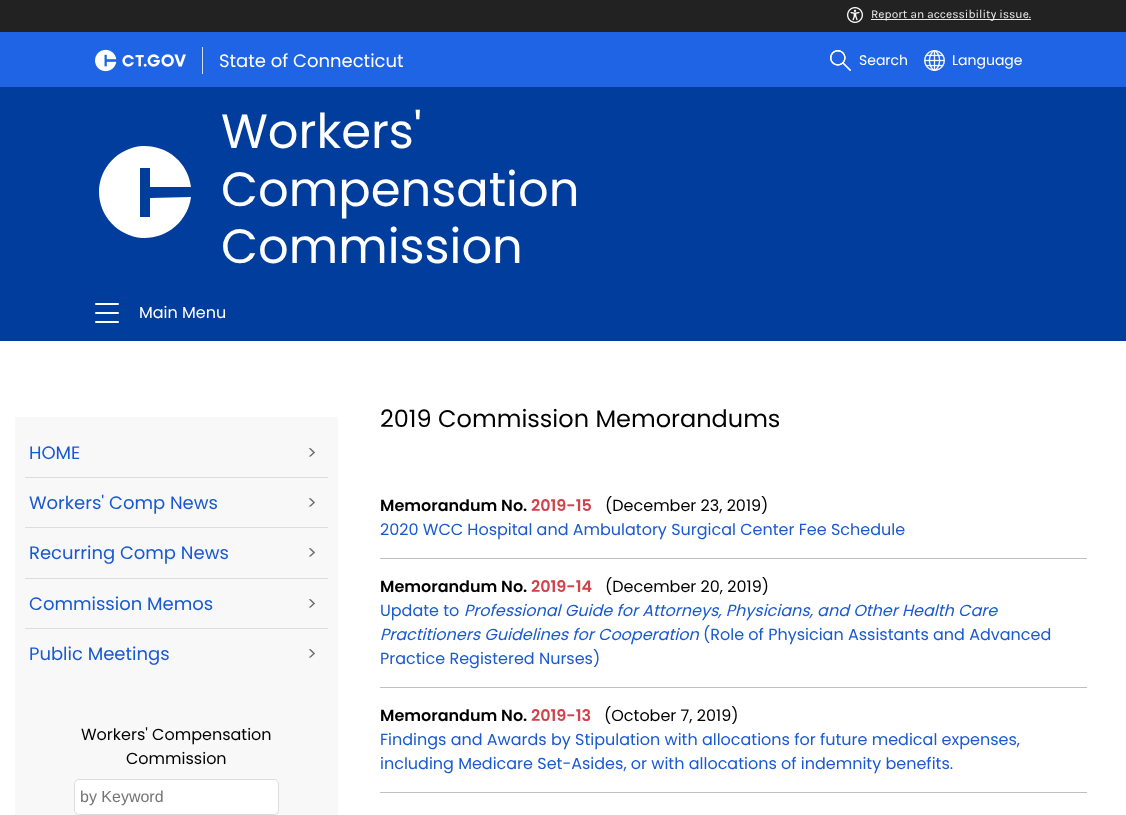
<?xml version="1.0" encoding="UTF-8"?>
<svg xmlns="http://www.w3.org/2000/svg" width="1126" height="815">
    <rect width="100%" height="100%" fill="#FFFFFF"/>
    <rect x="0" y="0" width="1126" height="32" fill="#222222"/>
    <image x="847" y="7" width="16" height="16" href="img_01.png"/>
    <rect x="871" y="19" width="160" height="1" fill="#ECECEC"/>
    <text x="871" y="18" font-family="Karla" font-size="12" fill="#ECECEC">Report an accessibility issue.</text>
    <rect x="0" y="32" width="1126" height="55" fill="#1F64E5"/>
    <image x="95" y="49" width="91" height="23" href="img_02.png"/>
    <rect x="202" y="47" width="1" height="27" fill="#D2E0FA"/>
    <text x="219" y="67" font-family="Poppins" font-size="18" fill="#FFFFFF">State of Connecticut</text>
    <image x="830" y="50" width="21" height="21" href="img_03.png"/>
    <text x="859" y="65" font-family="Poppins" font-size="14" fill="#FFFFFF">Search</text>
    <image x="924" y="50" width="21" height="21" href="img_04.png"/>
    <text x="952" y="65" font-family="Poppins" font-size="14" fill="#FFFFFF">Language</text>
    <rect x="0" y="87" width="1126" height="254" fill="#003D9C"/>
    <path d="M 150 198 V 217 H 140 V 168 H 150 V 187 H 191 C 188 162 167 145 142 146 C 118 148 99 168 99 192 C 99 216 118 236 142 238 C 167 239 188 221 191 197 Z" fill="#FFFFFF"/>
    <text font-family="Poppins" font-size="48" fill="#FFFFFF">
        <tspan x="221" y="148">Workers'</tspan>
        <tspan x="221" y="206">Compensation</tspan>
        <tspan x="221" y="263">Commission</tspan>
    </text>
    <rect x="95" y="312" width="24" height="2" rx="1" fill="#FFFFFF"/>
    <rect x="95" y="303" width="24" height="2" rx="1" fill="#FFFFFF"/>
    <rect x="95" y="321" width="24" height="2" rx="1" fill="#FFFFFF"/>
    <text x="139" y="318" font-family="Poppins" font-size="16" fill="#FFFFFF">Main Menu</text>
    <rect x="15" y="417" width="323" height="398" fill="#F8F8F8"/>
    <rect x="25" y="477" width="303" height="1" fill="#DDDDDD"/>
    <text x="29" y="459" font-family="Poppins" font-size="18" fill="#1959D2">HOME</text>
    <text x="307" y="459" font-family="Poppins" font-size="18" fill="#6E6E6E">&gt;</text>
    <rect x="25" y="527" width="303" height="1" fill="#DDDDDD"/>
    <text x="29" y="509" font-family="Poppins" font-size="18" fill="#1959D2">Workers' Comp News</text>
    <text x="307" y="509" font-family="Poppins" font-size="18" fill="#6E6E6E">&gt;</text>
    <rect x="25" y="578" width="303" height="1" fill="#DDDDDD"/>
    <text x="29" y="559" font-family="Poppins" font-size="18" fill="#1959D2">Recurring Comp News</text>
    <text x="307" y="559" font-family="Poppins" font-size="18" fill="#6E6E6E">&gt;</text>
    <rect x="25" y="628" width="303" height="1" fill="#DDDDDD"/>
    <text x="29" y="610" font-family="Poppins" font-size="18" fill="#1959D2">Commission Memos</text>
    <text x="307" y="610" font-family="Poppins" font-size="18" fill="#6E6E6E">&gt;</text>
    <text x="29" y="660" font-family="Poppins" font-size="18" fill="#1959D2">Public Meetings</text>
    <text x="307" y="660" font-family="Poppins" font-size="18" fill="#6E6E6E">&gt;</text>
    <text x="81" y="740" font-family="Poppins" font-size="16" fill="#000000">Workers' Compensation</text>
    <text x="126" y="764" font-family="Poppins" font-size="16" fill="#000000">Commission</text>
    <rect x="74.5" y="779.5" width="204" height="35" rx="4.5" fill="#FFFFFF" stroke="#DDDDDD"/>
    <text x="80" y="802" font-family="Liberation Sans" font-size="16" fill="#757575">by Keyword</text>
    <text x="380" y="427" font-family="Poppins" font-size="24" fill="#000000">2019 Commission Memorandums</text>
    <text x="380" y="511" font-family="Poppins" font-size="16" font-weight="600" fill="#000000">Memorandum No.</text>
    <text x="531" y="511" font-family="Poppins" font-size="16" font-weight="600" fill="#D1424A">2019-15</text>
    <text x="605" y="511" font-family="Poppins" font-size="16" fill="#000000">(December 23, 2019)</text>
    <text x="380" y="535" font-family="Poppins" font-size="16" fill="#1959D2">2020 WCC Hospital and Ambulatory Surgical Center Fee Schedule</text>
    <rect x="380" y="558" width="707" height="1" fill="#BFBFBF"/>
    <text x="380" y="592" font-family="Poppins" font-size="16" font-weight="600" fill="#000000">Memorandum No.</text>
    <text x="531" y="592" font-family="Poppins" font-size="16" font-weight="600" fill="#D1424A">2019-14</text>
    <text x="605" y="592" font-family="Poppins" font-size="16" fill="#000000">(December 20, 2019)</text>
    <text x="380" y="616" font-family="Poppins" font-size="16" fill="#1959D2">Update to</text>
    <text x="464" y="616" font-family="Poppins" font-size="16" font-style="italic" fill="#1959D2">Professional Guide for Attorneys, Physicians, and Other Health Care</text>
    <text x="380" y="640" font-family="Poppins" font-size="16" font-style="italic" fill="#1959D2">Practitioners Guidelines for Cooperation</text>
    <text x="703" y="640" font-family="Poppins" font-size="16" fill="#1959D2">(Role of Physician Assistants and Advanced</text>
    <text x="380" y="664" font-family="Poppins" font-size="16" fill="#1959D2">Practice Registered Nurses)</text>
    <rect x="380" y="687" width="707" height="1" fill="#BFBFBF"/>
    <text x="380" y="721" font-family="Poppins" font-size="16" font-weight="600" fill="#000000">Memorandum No.</text>
    <text x="531" y="721" font-family="Poppins" font-size="16" font-weight="600" fill="#D1424A">2019-13</text>
    <text x="604" y="721" font-family="Poppins" font-size="16" fill="#000000">(October 7, 2019)</text>
    <text font-family="Poppins" font-size="16" fill="#1959D2">
        <tspan x="380" y="745">Findings and Awards by Stipulation with allocations for future medical expenses,</tspan>
        <tspan x="380" y="769">including Medicare Set-Asides, or with allocations of indemnity benefits.</tspan>
    </text>
    <rect x="380" y="792" width="707" height="1" fill="#BFBFBF"/>
</svg>
